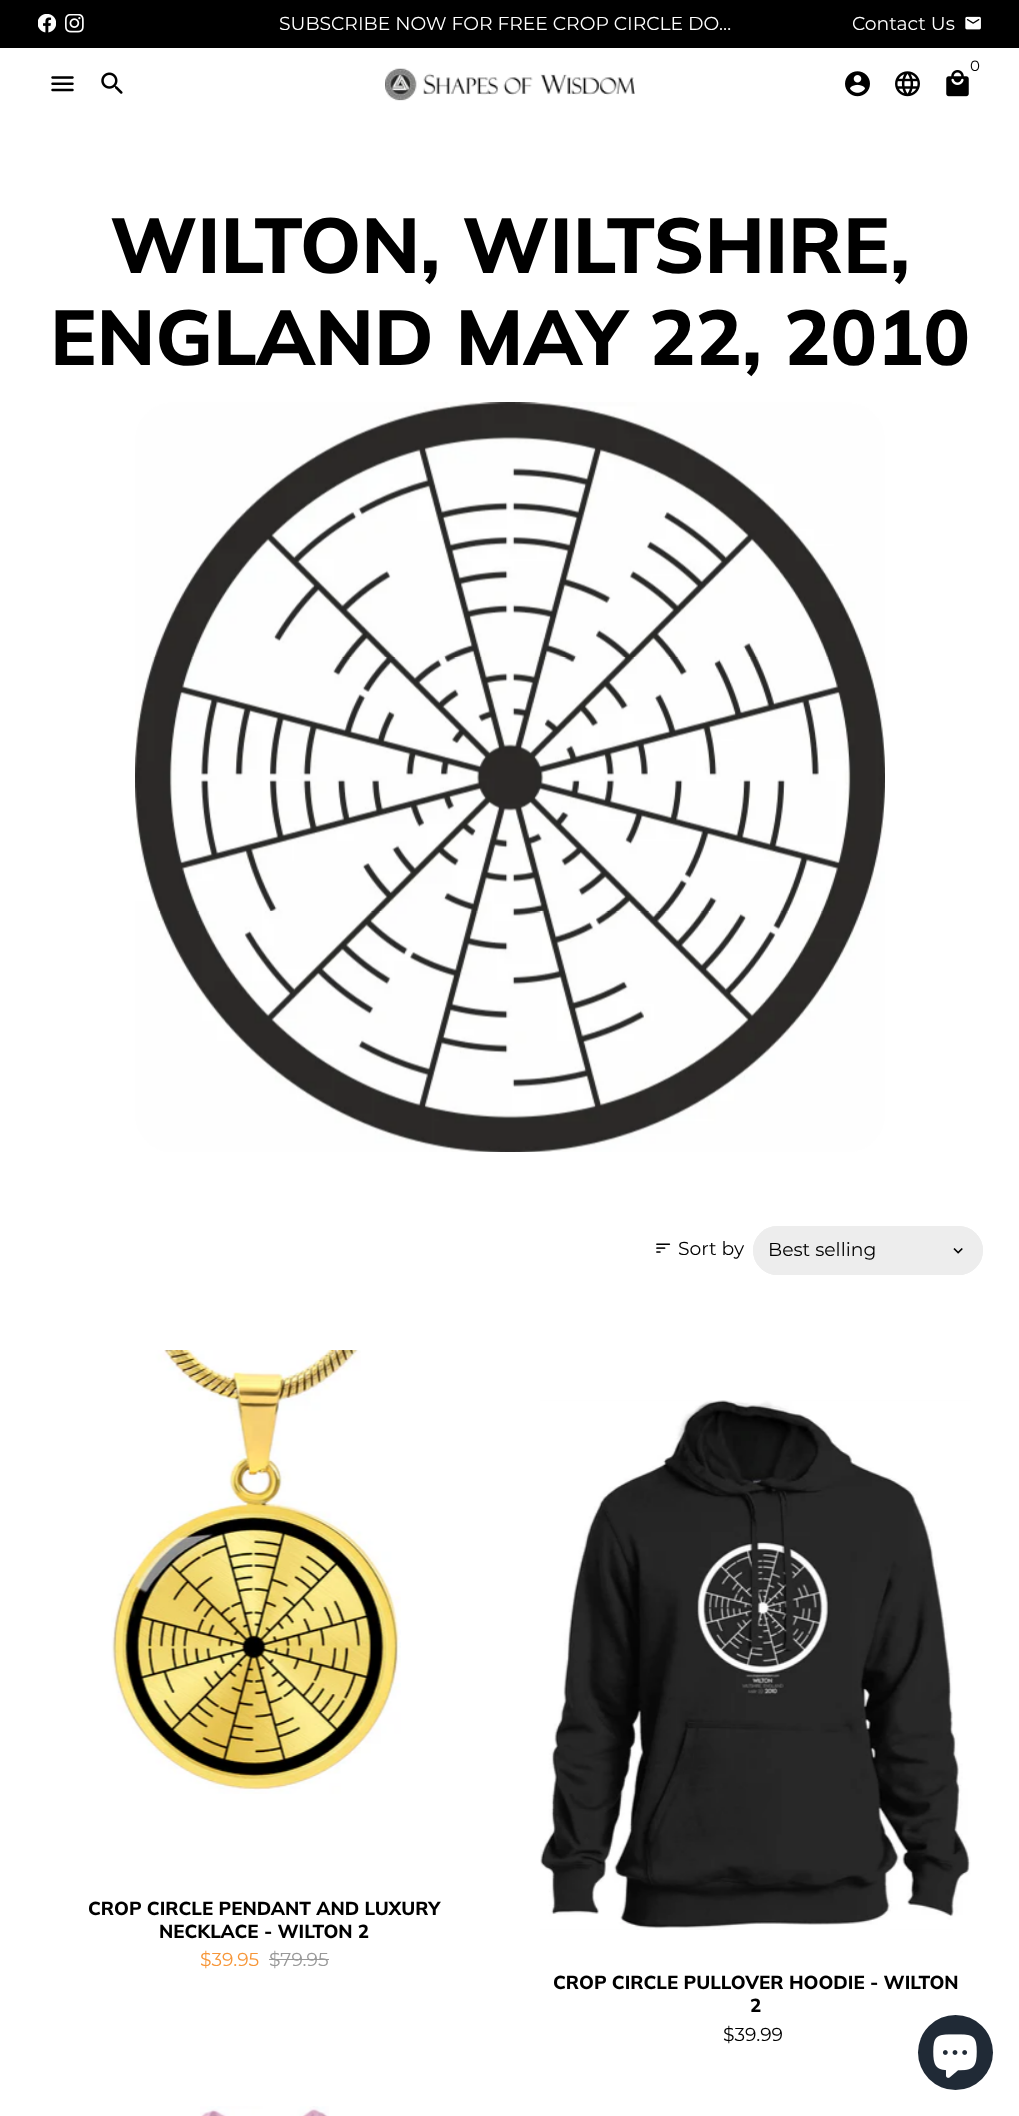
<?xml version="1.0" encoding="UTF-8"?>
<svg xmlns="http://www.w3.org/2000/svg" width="1019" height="2116">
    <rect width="100%" height="100%" fill="#FFFFFF"/>
    <rect x="0" y="0" width="1019" height="48" fill="#000000"/>
    <image x="38" y="14" width="18" height="19" href="img_01.png"/>
    <image x="65" y="14" width="19" height="19" href="img_02.png"/>
    <text x="279" y="30" font-family="Montserrat" font-size="18.75" fill="#FFFFFF">SUBSCRIBE NOW FOR FREE CROP CIRCLE DO…</text>
    <text x="852" y="30" font-family="Montserrat" font-size="18.75" fill="#FFFFFF">Contact Us</text>
    <image x="965" y="16" width="16" height="14" href="img_03.png"/>
    <text x="970" y="71" font-family="Montserrat" font-size="15" fill="#000000">0</text>
    <image x="946" y="70" width="23" height="27" href="img_04.png"/>
    <image x="845" y="71" width="25" height="26" href="img_05.png"/>
    <image x="895" y="71" width="25" height="26" href="img_06.png"/>
    <image x="51" y="76" width="23" height="16" href="img_07.png"/>
    <image x="101" y="72" width="22" height="22" href="img_08.png"/>
    <image x="385" y="68" width="250" height="33" href="img_09.png"/>
    <text x="110" y="273" font-family="Muli" font-size="77.5" font-weight="800" fill="#000000">WILTON, WILTSHIRE,</text>
    <text x="50" y="365" font-family="Muli" font-size="77.5" font-weight="800" fill="#000000">ENGLAND MAY 22, 2010</text>
    <image x="135" y="402" width="750" height="750" href="img_10.png"/>
    <image x="656" y="1243" width="15" height="10" href="img_11.png"/>
    <text x="678" y="1255" font-family="Montserrat" font-size="18.75" fill="#000000">Sort by</text>
    <rect x="753" y="1226" width="230" height="49" rx="24.5" fill="#EDEDED"/>
    <image x="953" y="1248" width="10" height="6" href="img_12.png"/>
    <rect x="754.5" y="1227.5" width="227" height="46" rx="23" fill="none" stroke="#EDEDED" stroke-width="3"/>
    <text x="768" y="1256" font-family="Montserrat" font-size="18.75" fill="#000000">Best selling</text>
    <image x="111" y="1350" width="290" height="444" href="img_13.png"/>
    <text x="88" y="1915" font-family="Muli" font-size="18.75" font-weight="800" fill="#000000">CROP CIRCLE PENDANT AND LUXURY</text>
    <text x="159" y="1938" font-family="Muli" font-size="18.75" font-weight="800" fill="#000000">NECKLACE - WILTON 2</text>
    <text x="200" y="1966" font-family="Montserrat" font-size="18.75" fill="#F79638">$39.95</text>
    <text x="269" y="1966" font-family="Montserrat" font-size="18.75" fill="#999999">$79.95</text>
    <rect x="269" y="1959" width="60" height="1" fill="#999999"/>
    <image x="540" y="1400" width="431" height="530" href="img_14.png"/>
    <text x="553" y="1989" font-family="Muli" font-size="18.75" font-weight="800" fill="#000000">CROP CIRCLE PULLOVER HOODIE - WILTON</text>
    <text x="750" y="2012" font-family="Muli" font-size="18.75" font-weight="800" fill="#000000">2</text>
    <text x="723" y="2041" font-family="Montserrat" font-size="18.75" fill="#000000">$39.99</text>
    <image x="200" y="2106" width="129" height="10" href="img_15.png"/>
    <circle cx="955.5" cy="2052.5" r="37.5" fill="#202A36"/>
    <image x="933" y="2034" width="44" height="44" href="img_16.png"/>
</svg>
